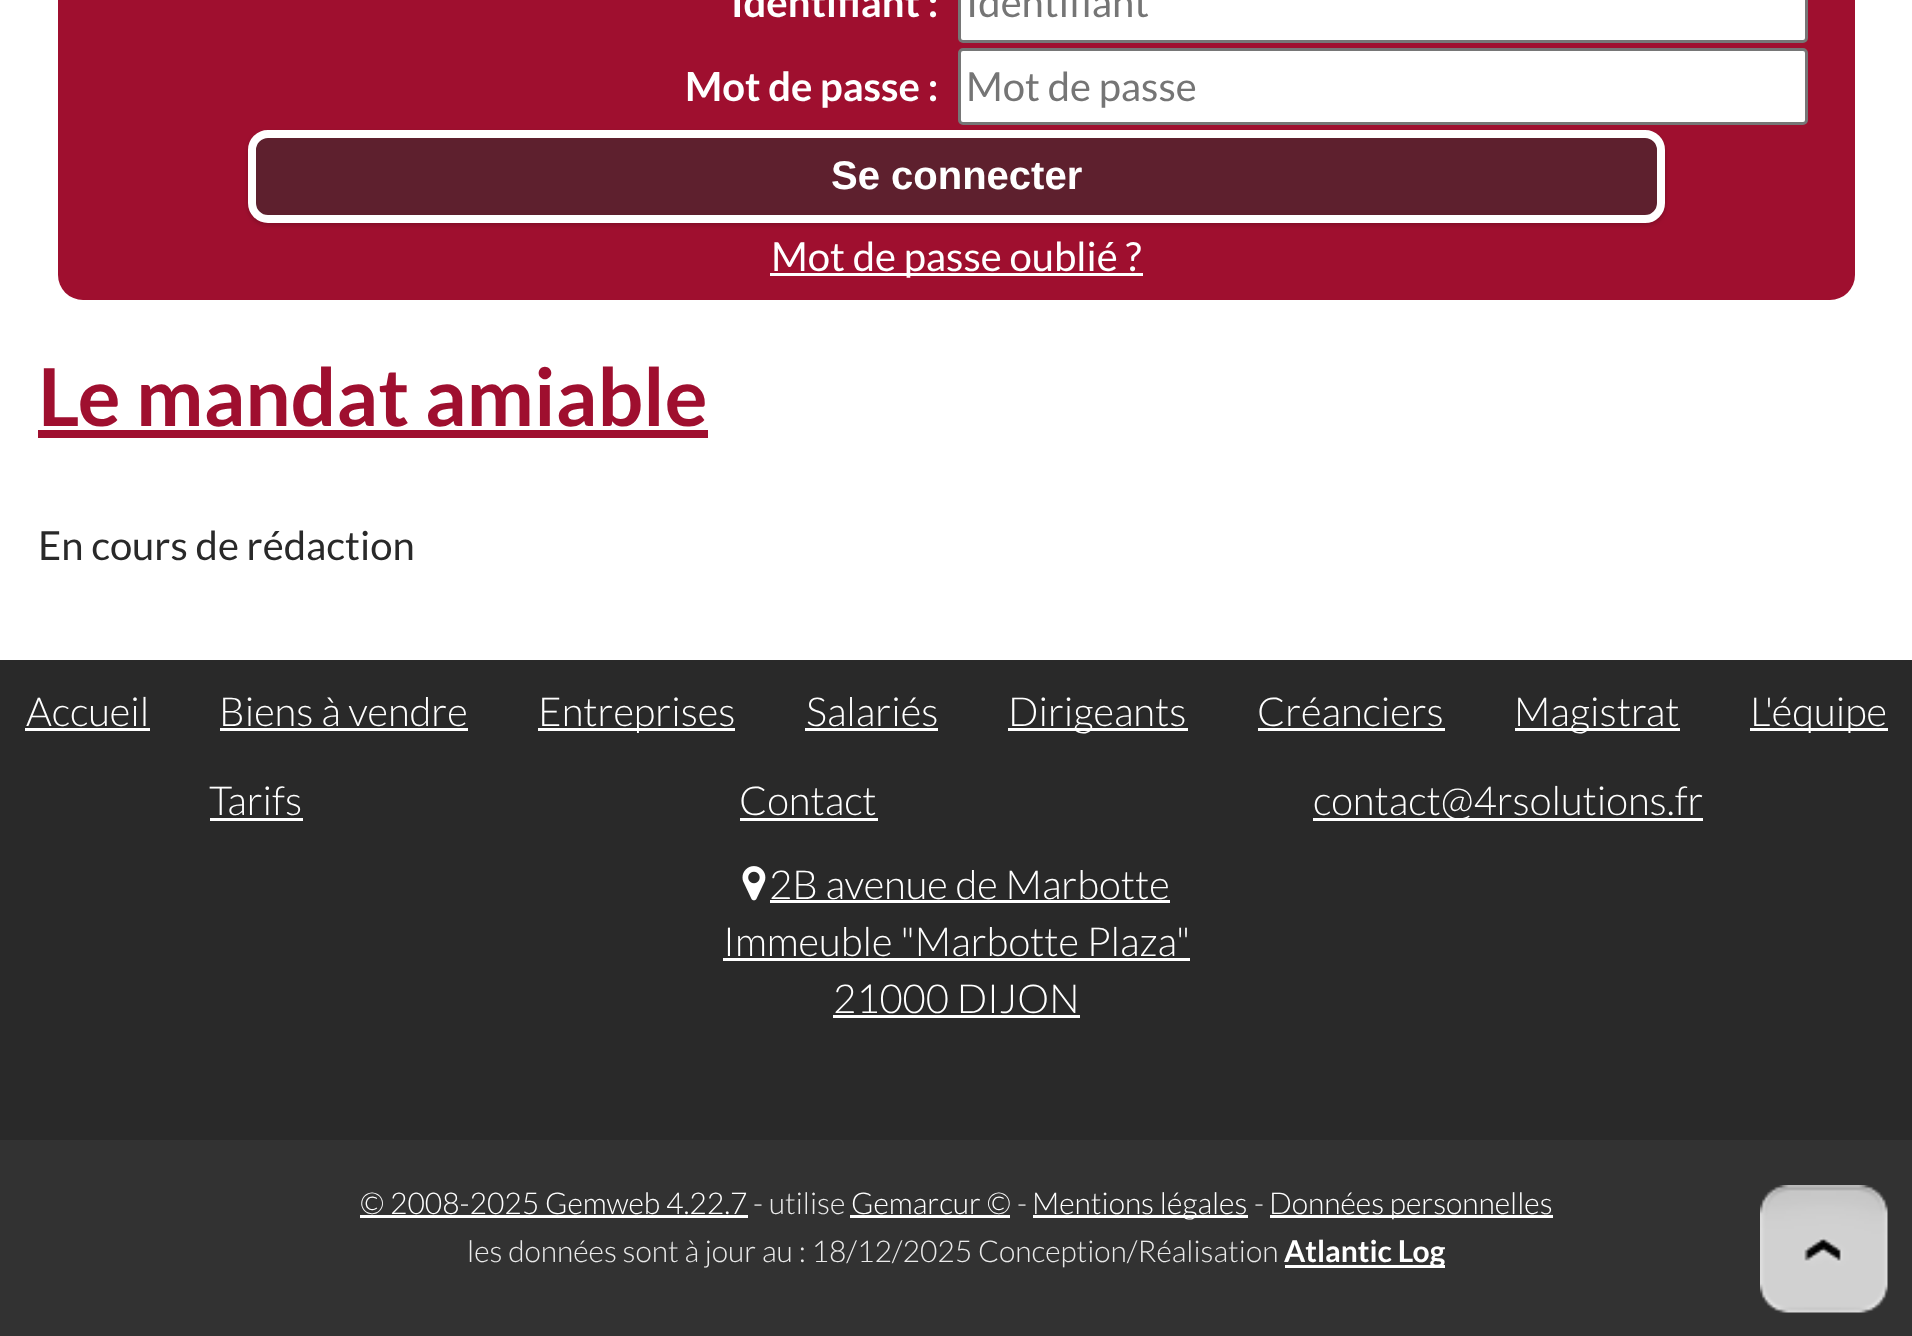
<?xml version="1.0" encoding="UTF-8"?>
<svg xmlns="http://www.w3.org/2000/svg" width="1912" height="1336">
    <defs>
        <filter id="blur1" x="-50%" y="-200%" width="200%" height="500%"><feGaussianBlur stdDeviation="2.5"/></filter>
    </defs>
    <rect width="100%" height="100%" fill="#FFFFFF"/>
    <rect x="58" y="-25" width="1797" height="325" rx="25" fill="#9F0F2F"/>
    <text x="731" y="17" font-family="Lato" font-size="40" font-weight="700" fill="#FFFFFF">Identifiant :</text>
    <rect x="959.5" y="-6.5" width="847" height="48" rx="3.5" fill="#FFFFFF" stroke="#767676" stroke-width="3"/>
    <text x="966" y="17" font-family="Lato" font-size="40" fill="#757575">Identifiant</text>
    <text x="685" y="101" font-family="Lato" font-size="40" font-weight="700" fill="#FFFFFF">Mot de passe :</text>
    <rect x="959.5" y="49.5" width="847" height="74" rx="3.5" fill="#FFFFFF" stroke="#767676" stroke-width="3"/>
    <text x="966" y="101" font-family="Lato" font-size="40" fill="#757575">Mot de passe</text>
    <rect x="248" y="133" width="1417" height="92" rx="20" fill="#000000" fill-opacity="0.2" filter="url(#blur1)"/>
    <rect x="252" y="134" width="1409" height="85" rx="16" fill="#5E202E" stroke="#FFFFFF" stroke-width="8"/>
    <text x="831" y="189" font-family="Liberation Sans" font-size="40" font-weight="700" fill="#FFFFFF">Se connecter</text>
    <rect x="770" y="273" width="373" height="3" fill="#FFFFFF"/>
    <text x="771" y="271" font-family="Lato" font-size="40" fill="#FFFFFF">Mot de passe oublié ?</text>
    <text x="38" y="426" font-family="Lato" font-size="80" font-weight="700" fill="#9F0F2F">Le mandat amiable</text>
    <rect x="38" y="430" width="670" height="8" fill="#9F0F2F"/>
    <text x="38" y="560" font-family="Lato" font-size="40" fill="#292929">En cours de rédaction</text>
    <rect x="0" y="660" width="1912" height="480" fill="#292929"/>
    <text x="26" y="726" font-family="Lato" font-size="40" font-weight="300" fill="#FFFFFF">Accueil</text>
    <rect x="25" y="728" width="125" height="3" fill="#FFFFFF"/>
    <text x="219" y="726" font-family="Lato" font-size="40" font-weight="300" fill="#FFFFFF">Biens à vendre</text>
    <rect x="220" y="728" width="248" height="3" fill="#FFFFFF"/>
    <rect x="538" y="728" width="197" height="3" fill="#FFFFFF"/>
    <text x="538" y="726" font-family="Lato" font-size="40" font-weight="300" fill="#FFFFFF">Entreprises</text>
    <text x="806" y="726" font-family="Lato" font-size="40" font-weight="300" fill="#FFFFFF">Salariés</text>
    <rect x="805" y="728" width="133" height="3" fill="#FFFFFF"/>
    <rect x="1008" y="728" width="180" height="3" fill="#FFFFFF"/>
    <text x="1008" y="726" font-family="Lato" font-size="40" font-weight="300" fill="#FFFFFF">Dirigeants</text>
    <text x="1257" y="726" font-family="Lato" font-size="40" font-weight="300" fill="#FFFFFF">Créanciers</text>
    <rect x="1258" y="728" width="187" height="3" fill="#FFFFFF"/>
    <rect x="1515" y="728" width="165" height="3" fill="#FFFFFF"/>
    <text x="1514" y="726" font-family="Lato" font-size="40" font-weight="300" fill="#FFFFFF">Magistrat</text>
    <rect x="1750" y="728" width="138" height="3" fill="#FFFFFF"/>
    <text x="1750" y="726" font-family="Lato" font-size="40" font-weight="300" fill="#FFFFFF">L'équipe</text>
    <text x="209" y="815" font-family="Lato" font-size="40" font-weight="300" fill="#FFFFFF">Tarifs</text>
    <rect x="210" y="818" width="93" height="3" fill="#FFFFFF"/>
    <text x="739" y="815" font-family="Lato" font-size="40" font-weight="300" fill="#FFFFFF">Contact</text>
    <rect x="740" y="818" width="138" height="3" fill="#FFFFFF"/>
    <rect x="1313" y="818" width="390" height="3" fill="#FFFFFF"/>
    <text x="1313" y="815" font-family="Lato" font-size="40" font-weight="300" fill="#FFFFFF">contact@4rsolutions.fr</text>
    <image x="742" y="866" width="24" height="35" href="img_01.png"/>
    <text x="769" y="899" font-family="Lato" font-size="40" font-weight="300" fill="#FFFFFF">2B avenue de Marbotte</text>
    <rect x="770" y="900" width="400" height="3" fill="#FFFFFF"/>
    <text x="723" y="956" font-family="Lato" font-size="40" font-weight="300" fill="#FFFFFF">Immeuble "Marbotte Plaza"</text>
    <rect x="723" y="958" width="467" height="3" fill="#FFFFFF"/>
    <text x="833" y="1013" font-family="Lato" font-size="40" font-weight="300" fill="#FFFFFF">21000 DIJON</text>
    <rect x="833" y="1015" width="247" height="3" fill="#FFFFFF"/>
    <rect x="0" y="1140" width="1912" height="196" fill="#323232"/>
    <text x="360" y="1214" font-family="Lato" font-size="30" font-weight="300" fill="#FFFFFF">© 2008-2025 Gemweb 4.22.7</text>
    <rect x="360" y="1215" width="388" height="3" fill="#FFFFFF"/>
    <text x="753" y="1214" font-family="Lato" font-size="30" font-weight="300" fill="#EAEAEA">- utilise</text>
    <text x="851" y="1214" font-family="Lato" font-size="30" font-weight="300" fill="#FFFFFF">Gemarcur ©</text>
    <rect x="850" y="1215" width="160" height="3" fill="#FFFFFF"/>
    <text x="1017" y="1214" font-family="Lato" font-size="30" font-weight="300" fill="#EAEAEA">-</text>
    <rect x="1033" y="1215" width="215" height="3" fill="#FFFFFF"/>
    <text x="1032" y="1214" font-family="Lato" font-size="30" font-weight="300" fill="#FFFFFF">Mentions légales</text>
    <text x="1254" y="1214" font-family="Lato" font-size="30" font-weight="300" fill="#EAEAEA">-</text>
    <rect x="1270" y="1215" width="283" height="3" fill="#FFFFFF"/>
    <text x="1269" y="1214" font-family="Lato" font-size="30" font-weight="300" fill="#FFFFFF">Données personnelles</text>
    <text x="467" y="1262" font-family="Lato" font-size="30" font-weight="300" fill="#EAEAEA">les données sont à jour au : 18/12/2025 Conception/Réalisation</text>
    <rect x="1285" y="1265" width="160" height="3" fill="#FFFFFF"/>
    <text x="1284" y="1262" font-family="Lato" font-size="30" font-weight="700" fill="#FFFFFF">Atlantic Log</text>
    <image x="1760" y="1185" width="128" height="128" href="img_02.png"/>
</svg>
